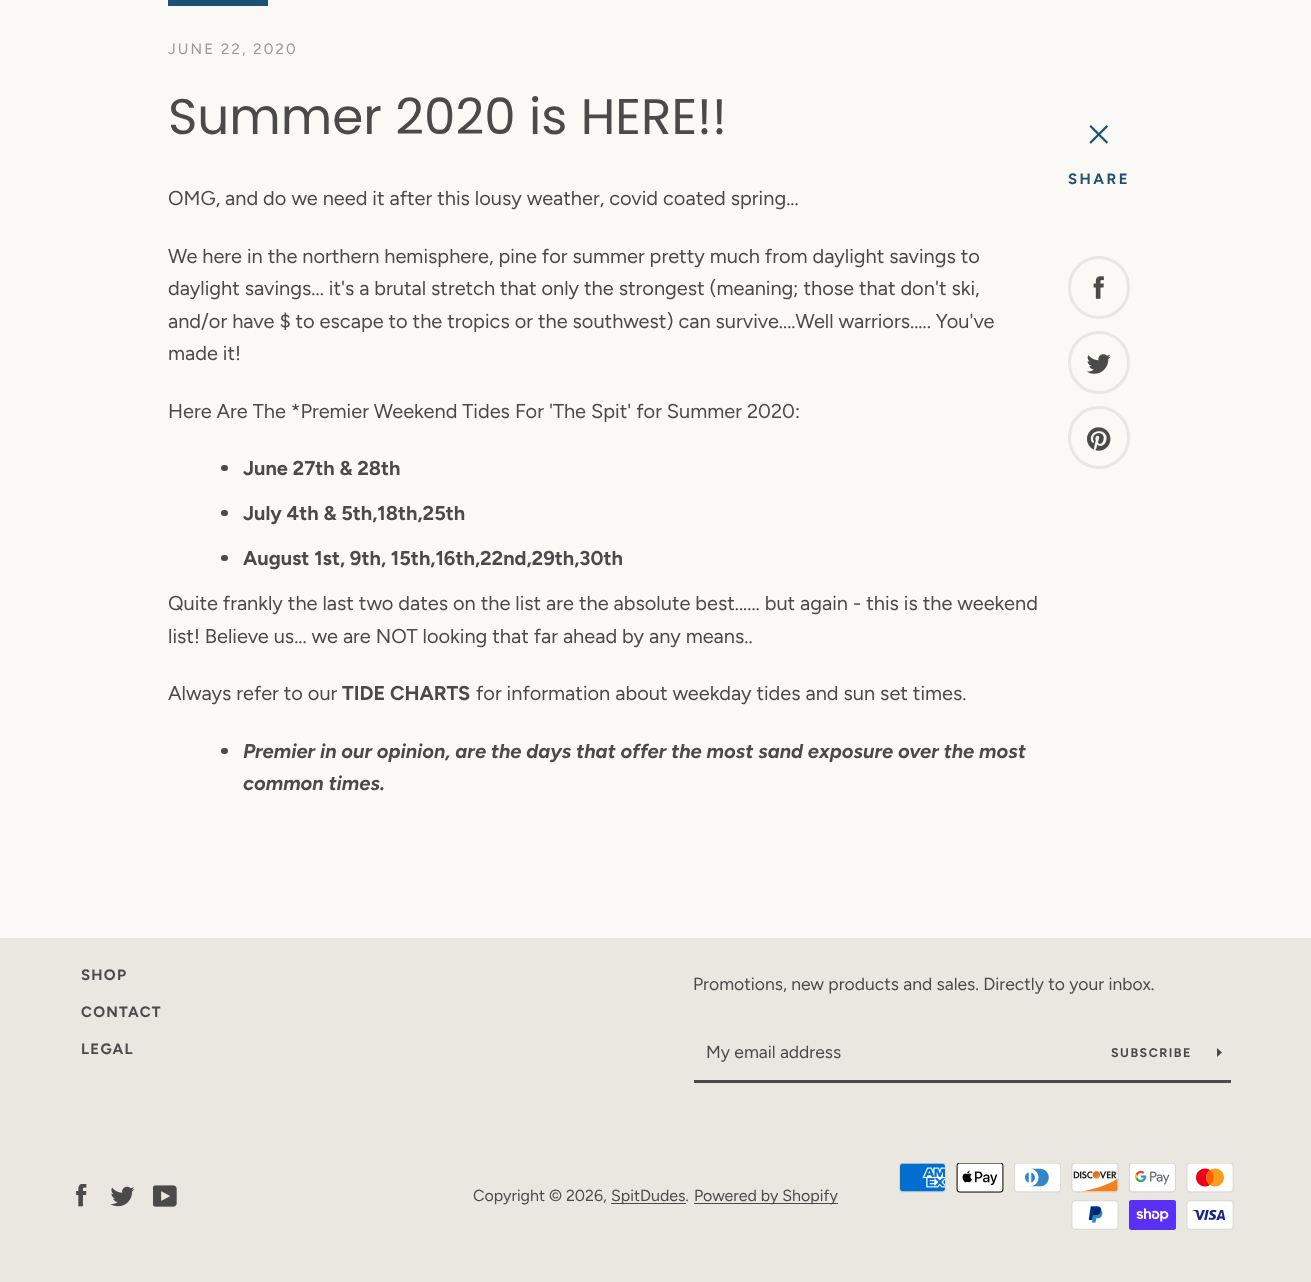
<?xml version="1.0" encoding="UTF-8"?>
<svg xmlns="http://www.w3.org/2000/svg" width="1311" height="1282">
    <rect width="100%" height="100%" fill="#EAE7E0"/>
    <rect x="0" y="0" width="1311" height="938" fill="#FAF9F6"/>
    <rect x="168" y="0" width="100" height="6" fill="#1D5171"/>
    <text x="168" y="54" font-family="Figtree" font-size="15" letter-spacing="2.1" fill="#979797">JUNE 22, 2020</text>
    <text x="168" y="134" font-family="Poppins" font-size="50" fill="#4A4A4A">Summer 2020 is HERE!!</text>
    <text x="168" y="205" font-family="Figtree" font-size="20" fill="#4A4A4A">OMG, and do we need it after this lousy weather, covid coated spring...</text>
    <text font-family="Figtree" font-size="20" fill="#4A4A4A">
        <tspan x="168" y="263">We here in the northern hemisphere, pine for summer pretty much from daylight savings to</tspan>
        <tspan x="168" y="295">daylight savings... it's a brutal stretch that only the strongest (meaning; those that don't ski,</tspan>
        <tspan x="168" y="328">and/or have $ to escape to the tropics or the southwest) can survive....Well warriors..... You've</tspan>
        <tspan x="168" y="360">made it!</tspan>
    </text>
    <text x="168" y="418" font-family="Figtree" font-size="20" fill="#4A4A4A">Here Are The *Premier Weekend Tides For 'The Spit' for Summer 2020:</text>
    <rect x="221" y="465" width="7" height="6" rx="3" fill="#4A4A4A"/>
    <text x="243" y="475" font-family="Figtree" font-size="20" font-weight="700" fill="#4A4A4A">June 27th &amp; 28th</text>
    <rect x="221" y="510" width="7" height="6" rx="3" fill="#4A4A4A"/>
    <text x="243" y="520" font-family="Figtree" font-size="20" font-weight="700" fill="#4A4A4A">July 4th &amp; 5th,18th,25th</text>
    <rect x="221" y="555" width="7" height="6" rx="3" fill="#4A4A4A"/>
    <text x="243" y="565" font-family="Figtree" font-size="20" font-weight="700" fill="#4A4A4A">August 1st, 9th, 15th,16th,22nd,29th,30th</text>
    <text font-family="Figtree" font-size="20" fill="#4A4A4A">
        <tspan x="168" y="610">Quite frankly the last two dates on the list are the absolute best...... but again - this is the weekend</tspan>
        <tspan x="168" y="643">list! Believe us... we are NOT looking that far ahead by any means..</tspan>
    </text>
    <text x="168" y="700" font-family="Figtree" font-size="20" fill="#4A4A4A">Always refer to our</text>
    <text x="342" y="700" font-family="Figtree" font-size="20" font-weight="700" fill="#4A4A4A">TIDE CHARTS</text>
    <text x="476" y="700" font-family="Figtree" font-size="20" fill="#4A4A4A">for information about weekday tides and sun set times.</text>
    <rect x="221" y="748" width="7" height="6" rx="3" fill="#4A4A4A"/>
    <text font-family="Figtree" font-size="20" font-weight="700" font-style="italic" fill="#4A4A4A">
        <tspan x="243" y="758">Premier in our opinion, are the days that offer the most sand exposure over the most</tspan>
        <tspan x="243" y="790">common times.</tspan>
    </text>
    <image x="1089" y="125" width="19" height="19" href="img_01.png"/>
    <text x="1068" y="184" font-family="Figtree" font-size="15" font-weight="700" letter-spacing="2.5" fill="#1D5171">SHARE</text>
    <rect x="1069.5" y="257.5" width="59" height="60" rx="29.5" fill="none" stroke="#E8E7E5" stroke-width="3"/>
    <image x="1093" y="276" width="11" height="23" href="img_02.png"/>
    <rect x="1069.5" y="332.5" width="59" height="60" rx="29.5" fill="none" stroke="#E8E7E5" stroke-width="3"/>
    <image x="1086" y="354" width="25" height="20" href="img_03.png"/>
    <rect x="1069.5" y="407.5" width="59" height="60" rx="29.5" fill="none" stroke="#E8E7E5" stroke-width="3"/>
    <image x="1087" y="427" width="24" height="24" href="img_04.png"/>
    <text x="81" y="980" font-family="Figtree" font-size="15" font-weight="700" letter-spacing="1.25" fill="#4A4A4A">SHOP</text>
    <text x="81" y="1017" font-family="Figtree" font-size="15" font-weight="700" letter-spacing="1.25" fill="#4A4A4A">CONTACT</text>
    <text x="81" y="1054" font-family="Figtree" font-size="15" font-weight="700" letter-spacing="1.25" fill="#4A4A4A">LEGAL</text>
    <text x="693" y="990" font-family="Figtree" font-size="17.5" fill="#4A4A4A">Promotions, new products and sales. Directly to your inbox.</text>
    <rect x="694" y="1080" width="537" height="3" fill="#4A4A4A"/>
    <text x="706" y="1058" font-family="Figtree" font-size="17.5" fill="#4A4A4A">My email address</text>
    <text x="1111" y="1057" font-family="Figtree" font-size="12.5" font-weight="700" letter-spacing="1.5" fill="#4A4A4A">SUBSCRIBE</text>
    <path d="M 1222 1052.5 L 1217 1057 V 1048 Z" fill="#4A4A4A"/>
    <image x="76" y="1184" width="11" height="23" href="img_05.png"/>
    <image x="110" y="1186" width="25" height="21" href="img_06.png"/>
    <image x="153" y="1185" width="24" height="22" href="img_07.png"/>
    <text x="473" y="1201" font-family="Figtree" font-size="16" fill="#4A4A4A">Copyright © 2026,</text>
    <rect x="611" y="1203" width="75" height="1" fill="#4A4A4A"/>
    <text x="611" y="1201" font-family="Figtree" font-size="16" fill="#4A4A4A">SpitDudes.</text>
    <rect x="694" y="1203" width="144" height="1" fill="#4A4A4A"/>
    <text x="694" y="1201" font-family="Figtree" font-size="16" fill="#4A4A4A">Powered by Shopify</text>
    <image x="899" y="1163" width="47" height="30" href="img_08.png"/>
    <image x="956" y="1163" width="48" height="30" href="img_09.png"/>
    <image x="1014" y="1163" width="47" height="30" href="img_10.png"/>
    <image x="1071" y="1163" width="48" height="30" href="img_11.png"/>
    <image x="1129" y="1163" width="47" height="30" href="img_12.png"/>
    <image x="1186" y="1163" width="48" height="30" href="img_13.png"/>
    <image x="1071" y="1200" width="48" height="30" href="img_14.png"/>
    <image x="1129" y="1200" width="47" height="30" href="img_15.png"/>
    <image x="1186" y="1200" width="48" height="30" href="img_16.png"/>
</svg>
